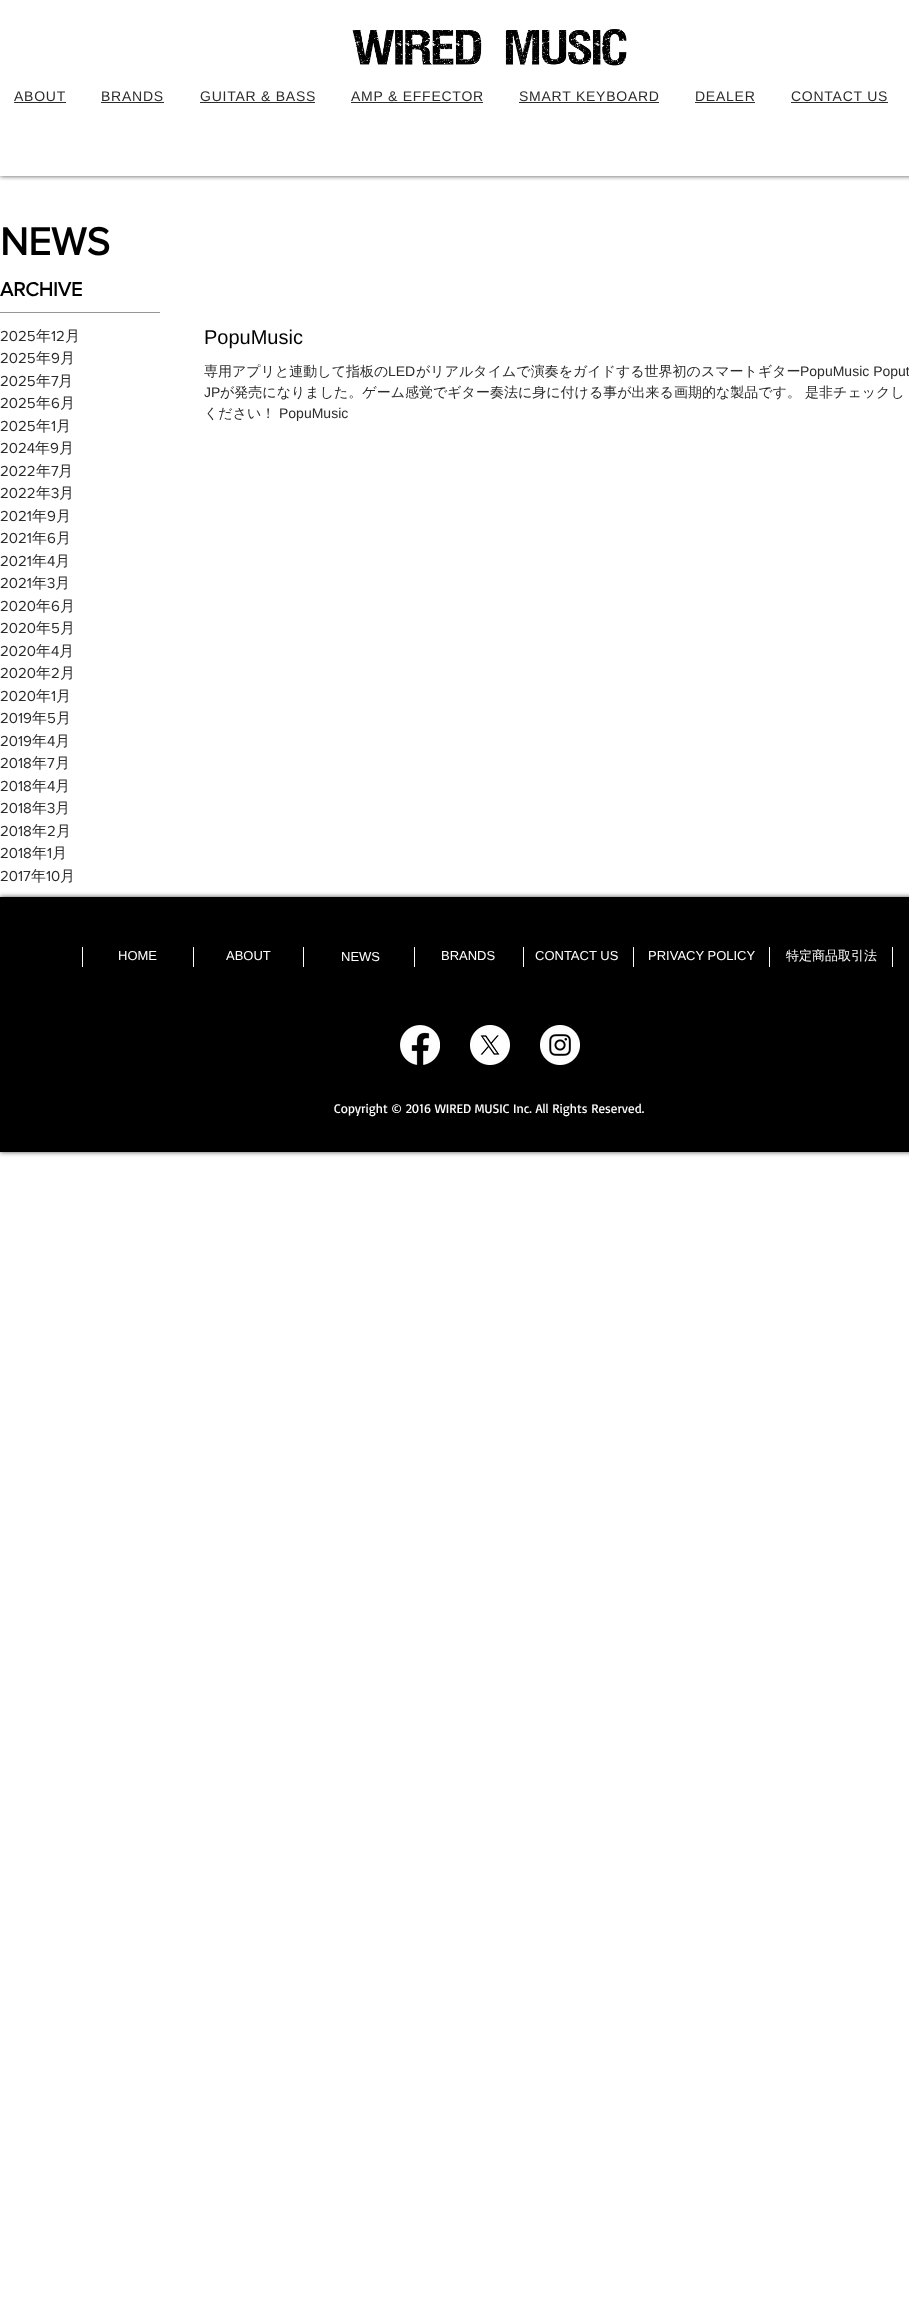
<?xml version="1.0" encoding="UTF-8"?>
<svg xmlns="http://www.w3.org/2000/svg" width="909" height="2297">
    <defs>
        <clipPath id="clip1"><rect x="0" y="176" width="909" height="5"/></clipPath>
        <filter id="blur1" x="-50%" y="-200%" width="200%" height="500%"><feGaussianBlur stdDeviation="2.5"/></filter>
    </defs>
    <rect width="100%" height="100%" fill="#FFFFFF"/>
    <g clip-path="url(#clip1)">
        <rect x="0" y="0" width="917" height="176" fill="#000000" fill-opacity="0.7" filter="url(#blur1)"/>
    </g>
    <image x="352" y="29" width="275" height="37" href="img_01.png"/>
    <text x="14" y="101" font-family="Liberation Sans" font-size="14" letter-spacing="0.75" fill="#2B2B2B">ABOUT</text>
    <rect x="14" y="102" width="52" height="1" fill="#2B2B2B"/>
    <text x="101" y="101" font-family="Liberation Sans" font-size="14" letter-spacing="0.75" fill="#2B2B2B">BRANDS</text>
    <rect x="101" y="102" width="63" height="1" fill="#2B2B2B"/>
    <text x="200" y="101" font-family="Liberation Sans" font-size="14" letter-spacing="0.75" fill="#2B2B2B">GUITAR &amp; BASS</text>
    <rect x="200" y="102" width="115" height="1" fill="#2B2B2B"/>
    <text x="351" y="101" font-family="Liberation Sans" font-size="14" letter-spacing="0.75" fill="#2B2B2B">AMP &amp; EFFECTOR</text>
    <rect x="351" y="102" width="132" height="1" fill="#2B2B2B"/>
    <text x="519" y="101" font-family="Liberation Sans" font-size="14" letter-spacing="0.75" fill="#2B2B2B">SMART KEYBOARD</text>
    <rect x="519" y="102" width="140" height="1" fill="#2B2B2B"/>
    <text x="695" y="101" font-family="Liberation Sans" font-size="14" letter-spacing="0.75" fill="#2B2B2B">DEALER</text>
    <rect x="695" y="102" width="60" height="1" fill="#2B2B2B"/>
    <text x="791" y="101" font-family="Liberation Sans" font-size="14" letter-spacing="0.75" fill="#2B2B2B">CONTACT US</text>
    <rect x="791" y="102" width="97" height="1" fill="#2B2B2B"/>
    <text x="0" y="255" font-family="'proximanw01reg'" font-size="40" font-weight="700" fill="#000000">NEWS</text>
    <text x="0" y="296" font-family="'proximanw01reg'" font-size="20" font-weight="700" fill="#000000">ARCHIVE</text>
    <rect x="0" y="312" width="160" height="1" fill="#979595"/>
    <text x="0" y="341" font-family="'proximanw01reg'" font-size="15" fill="#2B2B2B">2025</text>
    <text x="36" y="341" font-family="WenQuanYi Zen Hei" font-size="15" font-weight="500" fill="#2B2B2B">年</text>
    <text x="51" y="341" font-family="'proximanw01reg'" font-size="15" fill="#2B2B2B">12</text>
    <text x="65" y="341" font-family="WenQuanYi Zen Hei" font-size="15" font-weight="500" fill="#2B2B2B">月</text>
    <text x="0" y="363" font-family="'proximanw01reg'" font-size="15" fill="#2B2B2B">2025</text>
    <text x="36" y="363" font-family="WenQuanYi Zen Hei" font-size="15" font-weight="500" fill="#2B2B2B">年</text>
    <text x="51" y="363" font-family="'proximanw01reg'" font-size="15" fill="#2B2B2B">9</text>
    <text x="60" y="363" font-family="WenQuanYi Zen Hei" font-size="15" font-weight="500" fill="#2B2B2B">月</text>
    <text x="0" y="386" font-family="'proximanw01reg'" font-size="15" fill="#2B2B2B">2025</text>
    <text x="36" y="386" font-family="WenQuanYi Zen Hei" font-size="15" font-weight="500" fill="#2B2B2B">年</text>
    <text x="51" y="386" font-family="'proximanw01reg'" font-size="15" fill="#2B2B2B">7</text>
    <text x="58" y="386" font-family="WenQuanYi Zen Hei" font-size="15" font-weight="500" fill="#2B2B2B">月</text>
    <text x="0" y="408" font-family="'proximanw01reg'" font-size="15" fill="#2B2B2B">2025</text>
    <text x="36" y="408" font-family="WenQuanYi Zen Hei" font-size="15" font-weight="500" fill="#2B2B2B">年</text>
    <text x="51" y="408" font-family="'proximanw01reg'" font-size="15" fill="#2B2B2B">6</text>
    <text x="60" y="408" font-family="WenQuanYi Zen Hei" font-size="15" font-weight="500" fill="#2B2B2B">月</text>
    <text x="0" y="431" font-family="'proximanw01reg'" font-size="15" fill="#2B2B2B">2025</text>
    <text x="36" y="431" font-family="WenQuanYi Zen Hei" font-size="15" font-weight="500" fill="#2B2B2B">年</text>
    <text x="51" y="431" font-family="'proximanw01reg'" font-size="15" fill="#2B2B2B">1</text>
    <text x="56" y="431" font-family="WenQuanYi Zen Hei" font-size="15" font-weight="500" fill="#2B2B2B">月</text>
    <text x="0" y="453" font-family="'proximanw01reg'" font-size="15" fill="#2B2B2B">2024</text>
    <text x="35" y="453" font-family="WenQuanYi Zen Hei" font-size="15" font-weight="500" fill="#2B2B2B">年</text>
    <text x="50" y="453" font-family="'proximanw01reg'" font-size="15" fill="#2B2B2B">9</text>
    <text x="59" y="453" font-family="WenQuanYi Zen Hei" font-size="15" font-weight="500" fill="#2B2B2B">月</text>
    <text x="0" y="476" font-family="'proximanw01reg'" font-size="15" fill="#2B2B2B">2022</text>
    <text x="36" y="476" font-family="WenQuanYi Zen Hei" font-size="15" font-weight="500" fill="#2B2B2B">年</text>
    <text x="51" y="476" font-family="'proximanw01reg'" font-size="15" fill="#2B2B2B">7</text>
    <text x="58" y="476" font-family="WenQuanYi Zen Hei" font-size="15" font-weight="500" fill="#2B2B2B">月</text>
    <text x="0" y="498" font-family="'proximanw01reg'" font-size="15" fill="#2B2B2B">2022</text>
    <text x="36" y="498" font-family="WenQuanYi Zen Hei" font-size="15" font-weight="500" fill="#2B2B2B">年</text>
    <text x="51" y="498" font-family="'proximanw01reg'" font-size="15" fill="#2B2B2B">3</text>
    <text x="59" y="498" font-family="WenQuanYi Zen Hei" font-size="15" font-weight="500" fill="#2B2B2B">月</text>
    <text x="0" y="521" font-family="'proximanw01reg'" font-size="15" fill="#2B2B2B">2021</text>
    <text x="32" y="521" font-family="WenQuanYi Zen Hei" font-size="15" font-weight="500" fill="#2B2B2B">年</text>
    <text x="47" y="521" font-family="'proximanw01reg'" font-size="15" fill="#2B2B2B">9</text>
    <text x="56" y="521" font-family="WenQuanYi Zen Hei" font-size="15" font-weight="500" fill="#2B2B2B">月</text>
    <text x="0" y="543" font-family="'proximanw01reg'" font-size="15" fill="#2B2B2B">2021</text>
    <text x="32" y="543" font-family="WenQuanYi Zen Hei" font-size="15" font-weight="500" fill="#2B2B2B">年</text>
    <text x="47" y="543" font-family="'proximanw01reg'" font-size="15" fill="#2B2B2B">6</text>
    <text x="56" y="543" font-family="WenQuanYi Zen Hei" font-size="15" font-weight="500" fill="#2B2B2B">月</text>
    <text x="0" y="566" font-family="'proximanw01reg'" font-size="15" fill="#2B2B2B">2021</text>
    <text x="32" y="566" font-family="WenQuanYi Zen Hei" font-size="15" font-weight="500" fill="#2B2B2B">年</text>
    <text x="47" y="566" font-family="'proximanw01reg'" font-size="15" fill="#2B2B2B">4</text>
    <text x="55" y="566" font-family="WenQuanYi Zen Hei" font-size="15" font-weight="500" fill="#2B2B2B">月</text>
    <text x="0" y="588" font-family="'proximanw01reg'" font-size="15" fill="#2B2B2B">2021</text>
    <text x="32" y="588" font-family="WenQuanYi Zen Hei" font-size="15" font-weight="500" fill="#2B2B2B">年</text>
    <text x="47" y="588" font-family="'proximanw01reg'" font-size="15" fill="#2B2B2B">3</text>
    <text x="55" y="588" font-family="WenQuanYi Zen Hei" font-size="15" font-weight="500" fill="#2B2B2B">月</text>
    <text x="0" y="611" font-family="'proximanw01reg'" font-size="15" fill="#2B2B2B">2020</text>
    <text x="36" y="611" font-family="WenQuanYi Zen Hei" font-size="15" font-weight="500" fill="#2B2B2B">年</text>
    <text x="51" y="611" font-family="'proximanw01reg'" font-size="15" fill="#2B2B2B">6</text>
    <text x="60" y="611" font-family="WenQuanYi Zen Hei" font-size="15" font-weight="500" fill="#2B2B2B">月</text>
    <text x="0" y="633" font-family="'proximanw01reg'" font-size="15" fill="#2B2B2B">2020</text>
    <text x="36" y="633" font-family="WenQuanYi Zen Hei" font-size="15" font-weight="500" fill="#2B2B2B">年</text>
    <text x="51" y="633" font-family="'proximanw01reg'" font-size="15" fill="#2B2B2B">5</text>
    <text x="60" y="633" font-family="WenQuanYi Zen Hei" font-size="15" font-weight="500" fill="#2B2B2B">月</text>
    <text x="0" y="656" font-family="'proximanw01reg'" font-size="15" fill="#2B2B2B">2020</text>
    <text x="36" y="656" font-family="WenQuanYi Zen Hei" font-size="15" font-weight="500" fill="#2B2B2B">年</text>
    <text x="51" y="656" font-family="'proximanw01reg'" font-size="15" fill="#2B2B2B">4</text>
    <text x="59" y="656" font-family="WenQuanYi Zen Hei" font-size="15" font-weight="500" fill="#2B2B2B">月</text>
    <text x="0" y="678" font-family="'proximanw01reg'" font-size="15" fill="#2B2B2B">2020</text>
    <text x="36" y="678" font-family="WenQuanYi Zen Hei" font-size="15" font-weight="500" fill="#2B2B2B">年</text>
    <text x="51" y="678" font-family="'proximanw01reg'" font-size="15" fill="#2B2B2B">2</text>
    <text x="60" y="678" font-family="WenQuanYi Zen Hei" font-size="15" font-weight="500" fill="#2B2B2B">月</text>
    <text x="0" y="701" font-family="'proximanw01reg'" font-size="15" fill="#2B2B2B">2020</text>
    <text x="36" y="701" font-family="WenQuanYi Zen Hei" font-size="15" font-weight="500" fill="#2B2B2B">年</text>
    <text x="51" y="701" font-family="'proximanw01reg'" font-size="15" fill="#2B2B2B">1</text>
    <text x="56" y="701" font-family="WenQuanYi Zen Hei" font-size="15" font-weight="500" fill="#2B2B2B">月</text>
    <text x="0" y="723" font-family="'proximanw01reg'" font-size="15" fill="#2B2B2B">2019</text>
    <text x="32" y="723" font-family="WenQuanYi Zen Hei" font-size="15" font-weight="500" fill="#2B2B2B">年</text>
    <text x="47" y="723" font-family="'proximanw01reg'" font-size="15" fill="#2B2B2B">5</text>
    <text x="56" y="723" font-family="WenQuanYi Zen Hei" font-size="15" font-weight="500" fill="#2B2B2B">月</text>
    <text x="0" y="746" font-family="'proximanw01reg'" font-size="15" fill="#2B2B2B">2019</text>
    <text x="32" y="746" font-family="WenQuanYi Zen Hei" font-size="15" font-weight="500" fill="#2B2B2B">年</text>
    <text x="47" y="746" font-family="'proximanw01reg'" font-size="15" fill="#2B2B2B">4</text>
    <text x="55" y="746" font-family="WenQuanYi Zen Hei" font-size="15" font-weight="500" fill="#2B2B2B">月</text>
    <text x="0" y="768" font-family="'proximanw01reg'" font-size="15" fill="#2B2B2B">2018</text>
    <text x="32" y="768" font-family="WenQuanYi Zen Hei" font-size="15" font-weight="500" fill="#2B2B2B">年</text>
    <text x="47" y="768" font-family="'proximanw01reg'" font-size="15" fill="#2B2B2B">7</text>
    <text x="55" y="768" font-family="WenQuanYi Zen Hei" font-size="15" font-weight="500" fill="#2B2B2B">月</text>
    <text x="0" y="791" font-family="'proximanw01reg'" font-size="15" fill="#2B2B2B">2018</text>
    <text x="32" y="791" font-family="WenQuanYi Zen Hei" font-size="15" font-weight="500" fill="#2B2B2B">年</text>
    <text x="47" y="791" font-family="'proximanw01reg'" font-size="15" fill="#2B2B2B">4</text>
    <text x="55" y="791" font-family="WenQuanYi Zen Hei" font-size="15" font-weight="500" fill="#2B2B2B">月</text>
    <text x="0" y="813" font-family="'proximanw01reg'" font-size="15" fill="#2B2B2B">2018</text>
    <text x="32" y="813" font-family="WenQuanYi Zen Hei" font-size="15" font-weight="500" fill="#2B2B2B">年</text>
    <text x="47" y="813" font-family="'proximanw01reg'" font-size="15" fill="#2B2B2B">3</text>
    <text x="55" y="813" font-family="WenQuanYi Zen Hei" font-size="15" font-weight="500" fill="#2B2B2B">月</text>
    <text x="0" y="836" font-family="'proximanw01reg'" font-size="15" fill="#2B2B2B">2018</text>
    <text x="32" y="836" font-family="WenQuanYi Zen Hei" font-size="15" font-weight="500" fill="#2B2B2B">年</text>
    <text x="47" y="836" font-family="'proximanw01reg'" font-size="15" fill="#2B2B2B">2</text>
    <text x="56" y="836" font-family="WenQuanYi Zen Hei" font-size="15" font-weight="500" fill="#2B2B2B">月</text>
    <text x="0" y="858" font-family="'proximanw01reg'" font-size="15" fill="#2B2B2B">2018</text>
    <text x="32" y="858" font-family="WenQuanYi Zen Hei" font-size="15" font-weight="500" fill="#2B2B2B">年</text>
    <text x="47" y="858" font-family="'proximanw01reg'" font-size="15" fill="#2B2B2B">1</text>
    <text x="52" y="858" font-family="WenQuanYi Zen Hei" font-size="15" font-weight="500" fill="#2B2B2B">月</text>
    <text x="0" y="881" font-family="'proximanw01reg'" font-size="15" fill="#2B2B2B">2017</text>
    <text x="31" y="881" font-family="WenQuanYi Zen Hei" font-size="15" font-weight="500" fill="#2B2B2B">年</text>
    <text x="46" y="881" font-family="'proximanw01reg'" font-size="15" fill="#2B2B2B">10</text>
    <text x="60" y="881" font-family="WenQuanYi Zen Hei" font-size="15" font-weight="500" fill="#2B2B2B">月</text>
    <text x="204" y="344" font-family="Liberation Sans" font-size="20" fill="#000000">PopuMusic</text>
    <text x="204" y="376" font-family="WenQuanYi Zen Hei" font-size="14" font-weight="500" fill="#2B2B2B">専用アプリと連動して指板の</text>
    <text x="388" y="376" font-family="Liberation Sans" font-size="14" fill="#2B2B2B">LED</text>
    <text x="416" y="376" font-family="WenQuanYi Zen Hei" font-size="14" font-weight="500" fill="#2B2B2B">がリアルタイムで演奏をガイドする世界初のスマートギター</text>
    <text x="800" y="376" font-family="Liberation Sans" font-size="14" fill="#2B2B2B">PopuMusic Poput</text>
    <text x="204" y="397" font-family="Liberation Sans" font-size="14" fill="#2B2B2B">JP</text>
    <text x="220" y="397" font-family="WenQuanYi Zen Hei" font-size="14" font-weight="500" fill="#2B2B2B">が発売になりました。ゲーム感覚でギター奏法に身に付ける事が出来る画期的な製品です。 是非チェックし</text>
    <text x="204" y="418" font-family="WenQuanYi Zen Hei" font-size="14" font-weight="500" fill="#2B2B2B">ください！</text>
    <text x="279" y="418" font-family="Liberation Sans" font-size="14" fill="#2B2B2B">PopuMusic</text>
    <rect x="0" y="897" width="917" height="255" fill="#000000" fill-opacity="0.7" filter="url(#blur1)"/>
    <rect x="0" y="897" width="909" height="255" fill="#000000"/>
    <rect x="82" y="947" width="1" height="20" fill="#FFFFFF"/>
    <rect x="193" y="947" width="1" height="20" fill="#FFFFFF"/>
    <rect x="303" y="947" width="1" height="20" fill="#FFFFFF"/>
    <rect x="414" y="947" width="1" height="20" fill="#FFFFFF"/>
    <rect x="523" y="947" width="1" height="20" fill="#FFFFFF"/>
    <rect x="633" y="947" width="1" height="20" fill="#FFFFFF"/>
    <rect x="769" y="947" width="1" height="20" fill="#FFFFFF"/>
    <rect x="892" y="947" width="1" height="20" fill="#FFFFFF"/>
    <text x="118" y="960" font-family="Liberation Sans" font-size="13" fill="#FFFFFF">HOME</text>
    <text x="226" y="960" font-family="Liberation Sans" font-size="13" fill="#FFFFFF">ABOUT</text>
    <text x="341" y="961" font-family="Liberation Sans" font-size="13" fill="#FFFFFF">NEWS</text>
    <text x="441" y="960" font-family="Liberation Sans" font-size="13" fill="#FFFFFF">BRANDS</text>
    <text x="535" y="960" font-family="Liberation Sans" font-size="13" fill="#FFFFFF">CONTACT US</text>
    <text x="648" y="960" font-family="Liberation Sans" font-size="13" fill="#FFFFFF">PRIVACY POLICY</text>
    <text x="786" y="960" font-family="WenQuanYi Zen Hei" font-size="13" font-weight="500" fill="#FFFFFF">特定商品取引法</text>
    <image x="400" y="1025" width="40" height="40" href="img_02.png"/>
    <image x="470" y="1025" width="40" height="40" href="img_03.png"/>
    <image x="540" y="1025" width="40" height="40" href="img_04.png"/>
    <text x="334" y="1113" font-family="Basic" font-size="13" fill="#FFFFFF">Copyright © 2016 WIRED MUSIC Inc. All Rights Reserved.</text>
</svg>
